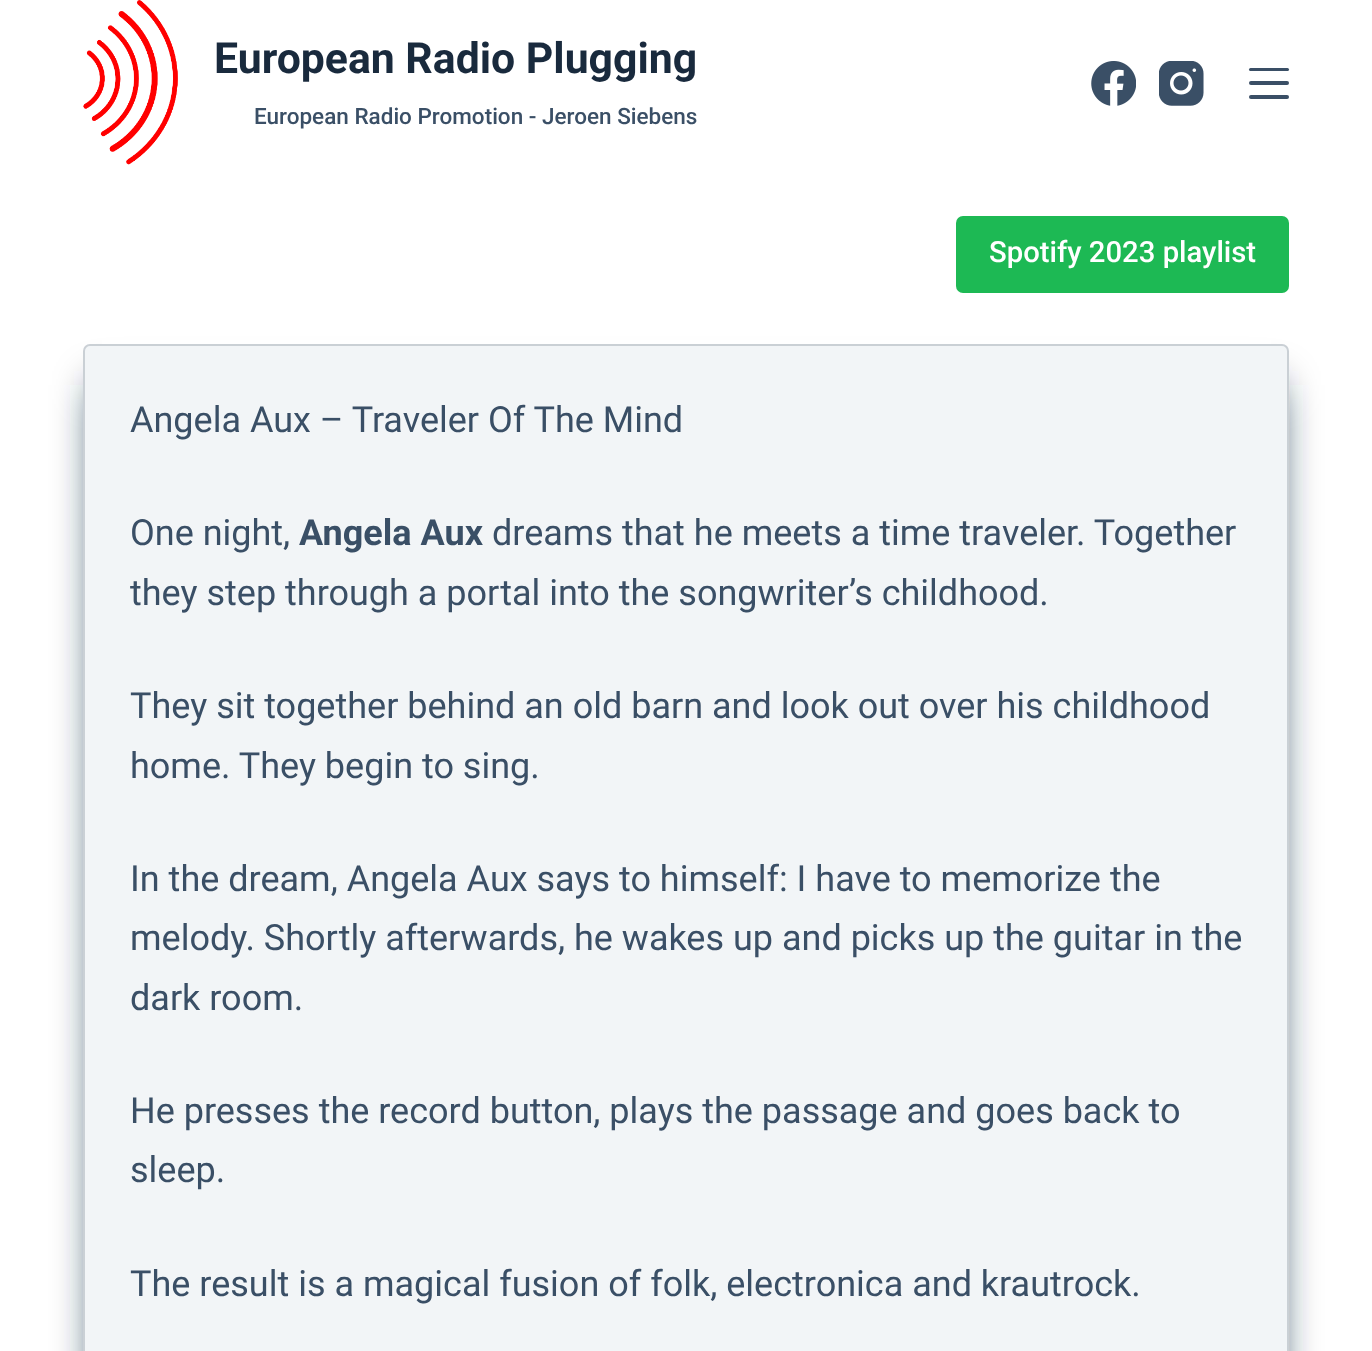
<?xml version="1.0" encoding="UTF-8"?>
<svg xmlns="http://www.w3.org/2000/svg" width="1372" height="1351">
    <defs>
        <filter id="blur1" x="-50%" y="-200%" width="200%" height="500%"><feGaussianBlur stdDeviation="20"/></filter>
    </defs>
    <rect width="100%" height="100%" fill="#FFFFFF"/>
    <image x="83" y="0" width="95" height="165" href="img_01.png"/>
    <text x="214" y="73" font-family="Roboto" font-size="42.75" font-weight="700" fill="#192A3D">European Radio Plugging</text>
    <text x="254" y="124" font-family="Roboto" font-size="22.5" font-weight="500" fill="#3A4F66">European Radio Promotion - Jeroen Siebens</text>
    <image x="1091" y="61" width="45" height="45" href="img_02.png"/>
    <image x="1159" y="61" width="45" height="45" href="img_03.png"/>
    <rect x="1249" y="68" width="40" height="3" rx="1.5" fill="#3A4F66"/>
    <rect x="1249" y="81" width="40" height="4" rx="2" fill="#3A4F66"/>
    <rect x="1249" y="95" width="40" height="4" rx="2" fill="#3A4F66"/>
    <rect x="97" y="385" width="1179" height="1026" fill="#192A3D" filter="url(#blur1)"/>
    <rect x="102" y="340" width="1169" height="4" fill="#FFFFFF"/>
    <rect x="956" y="216" width="333" height="77" rx="7" fill="#1DB954"/>
    <text x="989" y="262" font-family="Roboto" font-size="29.25" font-weight="500" fill="#FFFFFF">Spotify 2023 playlist</text>
    <rect x="83" y="344" width="1206" height="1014" rx="7" fill="#F2F5F7"/>
    <rect x="84" y="345" width="1204" height="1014" rx="6" fill="none" stroke="#2C3E50" stroke-opacity="0.2" stroke-width="2"/>
    <text x="130" y="432" font-family="Roboto" font-size="36" fill="#3A4F66">Angela Aux – Traveler Of The Mind</text>
    <text x="130" y="545" font-family="Roboto" font-size="36" fill="#3A4F66">One night,</text>
    <text x="299" y="545" font-family="Roboto" font-size="36" font-weight="700" fill="#3A4F66">Angela Aux</text>
    <text x="492" y="545" font-family="Roboto" font-size="36" fill="#3A4F66">dreams that he meets a time traveler. Together</text>
    <text x="130" y="605" font-family="Roboto" font-size="36" fill="#3A4F66">they step through a portal into the songwriter’s childhood.</text>
    <text font-family="Roboto" font-size="36" fill="#3A4F66">
        <tspan x="130" y="718">They sit together behind an old barn and look out over his childhood</tspan>
        <tspan x="130" y="778">home. They begin to sing.</tspan>
    </text>
    <text font-family="Roboto" font-size="36" fill="#3A4F66">
        <tspan x="130" y="891">In the dream, Angela Aux says to himself: I have to memorize the</tspan>
        <tspan x="130" y="950">melody. Shortly afterwards, he wakes up and picks up the guitar in the</tspan>
        <tspan x="130" y="1010">dark room.</tspan>
    </text>
    <text font-family="Roboto" font-size="36" fill="#3A4F66">
        <tspan x="130" y="1123">He presses the record button, plays the passage and goes back to</tspan>
        <tspan x="130" y="1182">sleep.</tspan>
    </text>
    <text x="130" y="1296" font-family="Roboto" font-size="36" fill="#3A4F66">The result is a magical fusion of folk, electronica and krautrock.</text>
</svg>
